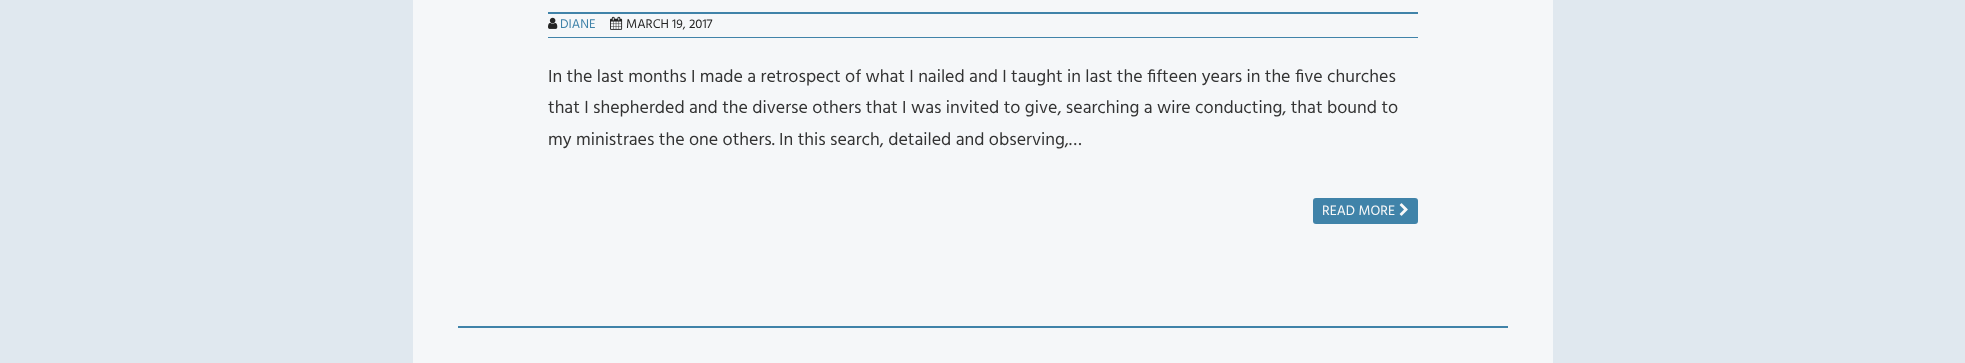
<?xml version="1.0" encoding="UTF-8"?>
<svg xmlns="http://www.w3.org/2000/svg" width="1965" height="363">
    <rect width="100%" height="100%" fill="#E0E8EF"/>
    <rect x="413" y="0" width="1140" height="363" fill="#F5F7F9"/>
    <rect x="548" y="12" width="870" height="2" fill="#4083A9"/>
    <rect x="548" y="37" width="870" height="1" fill="#4083A9"/>
    <image x="548" y="17" width="10" height="12" href="img_01.png"/>
    <text x="560" y="28" font-family="Hind" font-size="13" fill="#4083A9">DIANE</text>
    <image x="610" y="16" width="13" height="14" href="img_02.png"/>
    <text x="626" y="28" font-family="Hind" font-size="13" fill="#242424">MARCH 19, 2017</text>
    <text font-family="Hind" font-size="18" fill="#333333">
        <tspan x="548" y="82">In the last months I made a retrospect of what I nailed and I taught in last the fifteen years in the five churches</tspan>
        <tspan x="548" y="113">that I shepherded and the diverse others that I was invited to give, searching a wire conducting, that bound to</tspan>
        <tspan x="548" y="145">my ministraes the one others. In this search, detailed and observing,…</tspan>
    </text>
    <rect x="1313" y="198" width="105" height="26" rx="3" fill="#4083A9"/>
    <text x="1322" y="215" font-family="Hind" font-size="14" fill="#F9F9F9">READ MORE</text>
    <image x="1399" y="203" width="9" height="13" href="img_03.png"/>
    <rect x="458" y="326" width="1050" height="2" fill="#4083A9"/>
</svg>
